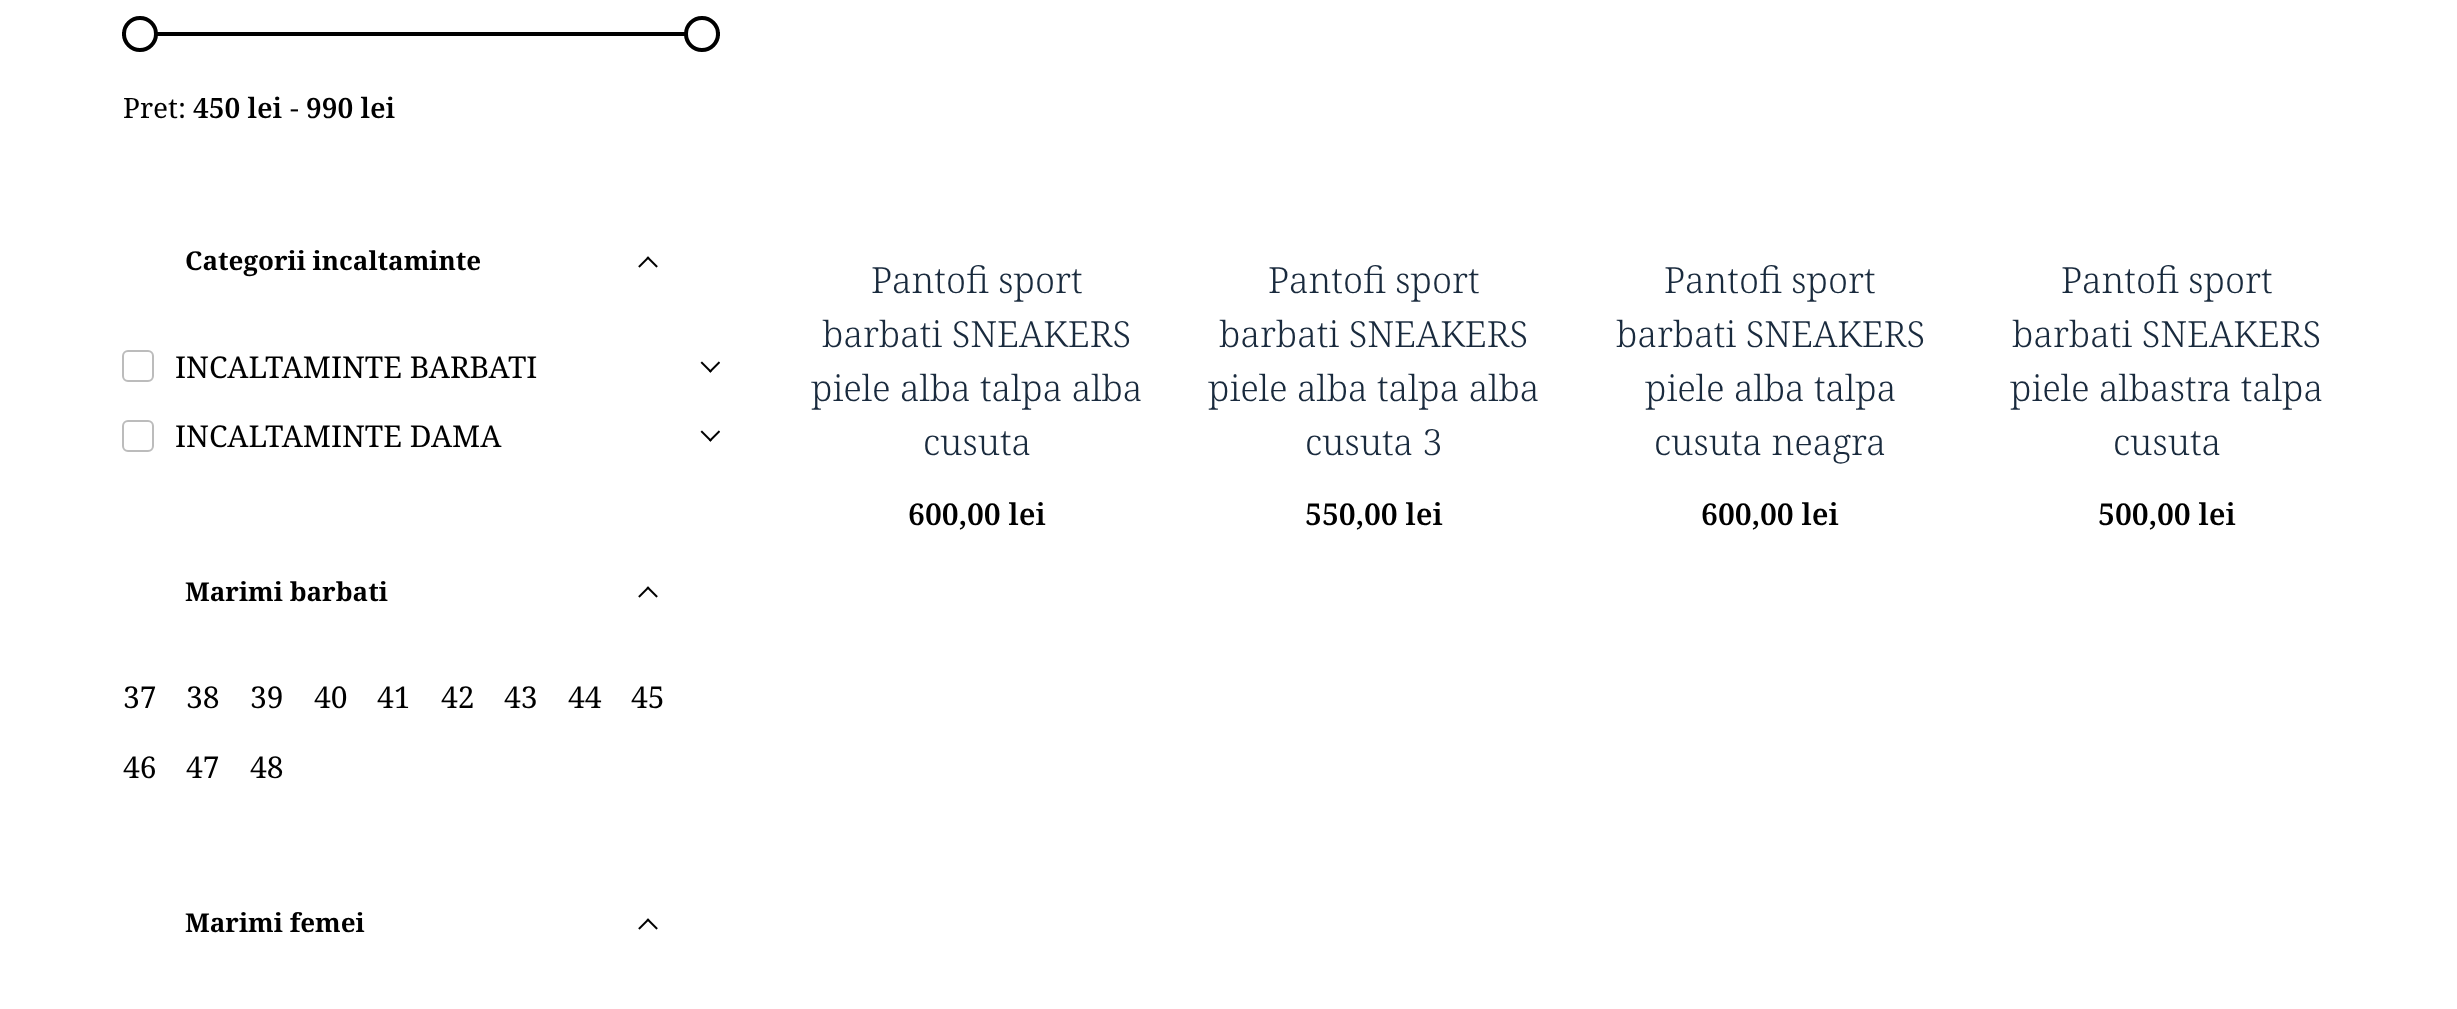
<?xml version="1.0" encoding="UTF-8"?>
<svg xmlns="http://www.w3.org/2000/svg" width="2457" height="1009">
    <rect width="100%" height="100%" fill="#FFFFFF"/>
    <rect x="122" y="32" width="598" height="4" fill="#000000"/>
    <circle cx="140" cy="34" r="16" fill="#FFFFFF" stroke="#000000" stroke-width="4"/>
    <circle cx="702" cy="34" r="16" fill="#FFFFFF" stroke="#000000" stroke-width="4"/>
    <text x="123" y="118" font-family="Noto Serif" font-size="28" fill="#000000">Pret:</text>
    <text x="193" y="118" font-family="Noto Serif" font-size="28" font-weight="600" fill="#000000">450 lei</text>
    <text x="290" y="118" font-family="Noto Serif" font-size="28" fill="#000000">-</text>
    <text x="306" y="118" font-family="Noto Serif" font-size="28" font-weight="600" fill="#000000">990 lei</text>
    <text x="185" y="270" font-family="Noto Serif" font-size="26" font-weight="700" fill="#000000">Categorii incaltaminte</text>
    <image x="638" y="256" width="20" height="12" href="img_01.png"/>
    <rect x="123" y="351" width="30" height="30" rx="5" fill="none" stroke="#BCBCBC" stroke-width="2"/>
    <text x="175" y="378" font-family="Noto Serif" font-size="30" fill="#000000">INCALTAMINTE BARBATI</text>
    <image x="700" y="361" width="20" height="12" href="img_02.png"/>
    <rect x="123" y="421" width="30" height="30" rx="5" fill="none" stroke="#BCBCBC" stroke-width="2"/>
    <text x="175" y="447" font-family="Noto Serif" font-size="30" fill="#000000">INCALTAMINTE DAMA</text>
    <image x="700" y="430" width="20" height="12" href="img_02.png"/>
    <text x="185" y="601" font-family="Noto Serif" font-size="26" font-weight="700" fill="#000000">Marimi barbati</text>
    <image x="638" y="586" width="20" height="12" href="img_01.png"/>
    <text x="123" y="708" font-family="Noto Serif" font-size="30" fill="#000000">37</text>
    <text x="186" y="708" font-family="Noto Serif" font-size="30" fill="#000000">38</text>
    <text x="250" y="708" font-family="Noto Serif" font-size="30" fill="#000000">39</text>
    <text x="314" y="708" font-family="Noto Serif" font-size="30" fill="#000000">40</text>
    <text x="377" y="708" font-family="Noto Serif" font-size="30" fill="#000000">41</text>
    <text x="441" y="708" font-family="Noto Serif" font-size="30" fill="#000000">42</text>
    <text x="504" y="708" font-family="Noto Serif" font-size="30" fill="#000000">43</text>
    <text x="568" y="708" font-family="Noto Serif" font-size="30" fill="#000000">44</text>
    <text x="631" y="708" font-family="Noto Serif" font-size="30" fill="#000000">45</text>
    <text x="123" y="778" font-family="Noto Serif" font-size="30" fill="#000000">46</text>
    <text x="186" y="778" font-family="Noto Serif" font-size="30" fill="#000000">47</text>
    <text x="250" y="778" font-family="Noto Serif" font-size="30" fill="#000000">48</text>
    <text x="185" y="932" font-family="Noto Serif" font-size="26" font-weight="700" fill="#000000">Marimi femei</text>
    <image x="638" y="918" width="20" height="12" href="img_01.png"/>
    <text x="871" y="293" font-family="Noto Serif" font-size="36" font-weight="300" fill="#192A3D">Pantofi sport</text>
    <text x="822" y="347" font-family="Noto Serif" font-size="36" font-weight="300" fill="#192A3D">barbati SNEAKERS</text>
    <text x="811" y="401" font-family="Noto Serif" font-size="36" font-weight="300" fill="#192A3D">piele alba talpa alba</text>
    <text x="923" y="455" font-family="Noto Serif" font-size="36" font-weight="300" fill="#192A3D">cusuta</text>
    <text x="908" y="525" font-family="Noto Serif" font-size="30" font-weight="600" fill="#000000">600,00 lei</text>
    <text x="1268" y="293" font-family="Noto Serif" font-size="36" font-weight="300" fill="#192A3D">Pantofi sport</text>
    <text x="1219" y="347" font-family="Noto Serif" font-size="36" font-weight="300" fill="#192A3D">barbati SNEAKERS</text>
    <text x="1208" y="401" font-family="Noto Serif" font-size="36" font-weight="300" fill="#192A3D">piele alba talpa alba</text>
    <text x="1305" y="455" font-family="Noto Serif" font-size="36" font-weight="300" fill="#192A3D">cusuta 3</text>
    <text x="1305" y="525" font-family="Noto Serif" font-size="30" font-weight="600" fill="#000000">550,00 lei</text>
    <text x="1664" y="293" font-family="Noto Serif" font-size="36" font-weight="300" fill="#192A3D">Pantofi sport</text>
    <text x="1616" y="347" font-family="Noto Serif" font-size="36" font-weight="300" fill="#192A3D">barbati SNEAKERS</text>
    <text x="1645" y="401" font-family="Noto Serif" font-size="36" font-weight="300" fill="#192A3D">piele alba talpa</text>
    <text x="1654" y="455" font-family="Noto Serif" font-size="36" font-weight="300" fill="#192A3D">cusuta neagra</text>
    <text x="1701" y="525" font-family="Noto Serif" font-size="30" font-weight="600" fill="#000000">600,00 lei</text>
    <text x="2061" y="293" font-family="Noto Serif" font-size="36" font-weight="300" fill="#192A3D">Pantofi sport</text>
    <text x="2012" y="347" font-family="Noto Serif" font-size="36" font-weight="300" fill="#192A3D">barbati SNEAKERS</text>
    <text x="2010" y="401" font-family="Noto Serif" font-size="36" font-weight="300" fill="#192A3D">piele albastra talpa</text>
    <text x="2113" y="455" font-family="Noto Serif" font-size="36" font-weight="300" fill="#192A3D">cusuta</text>
    <text x="2098" y="525" font-family="Noto Serif" font-size="30" font-weight="600" fill="#000000">500,00 lei</text>
</svg>
